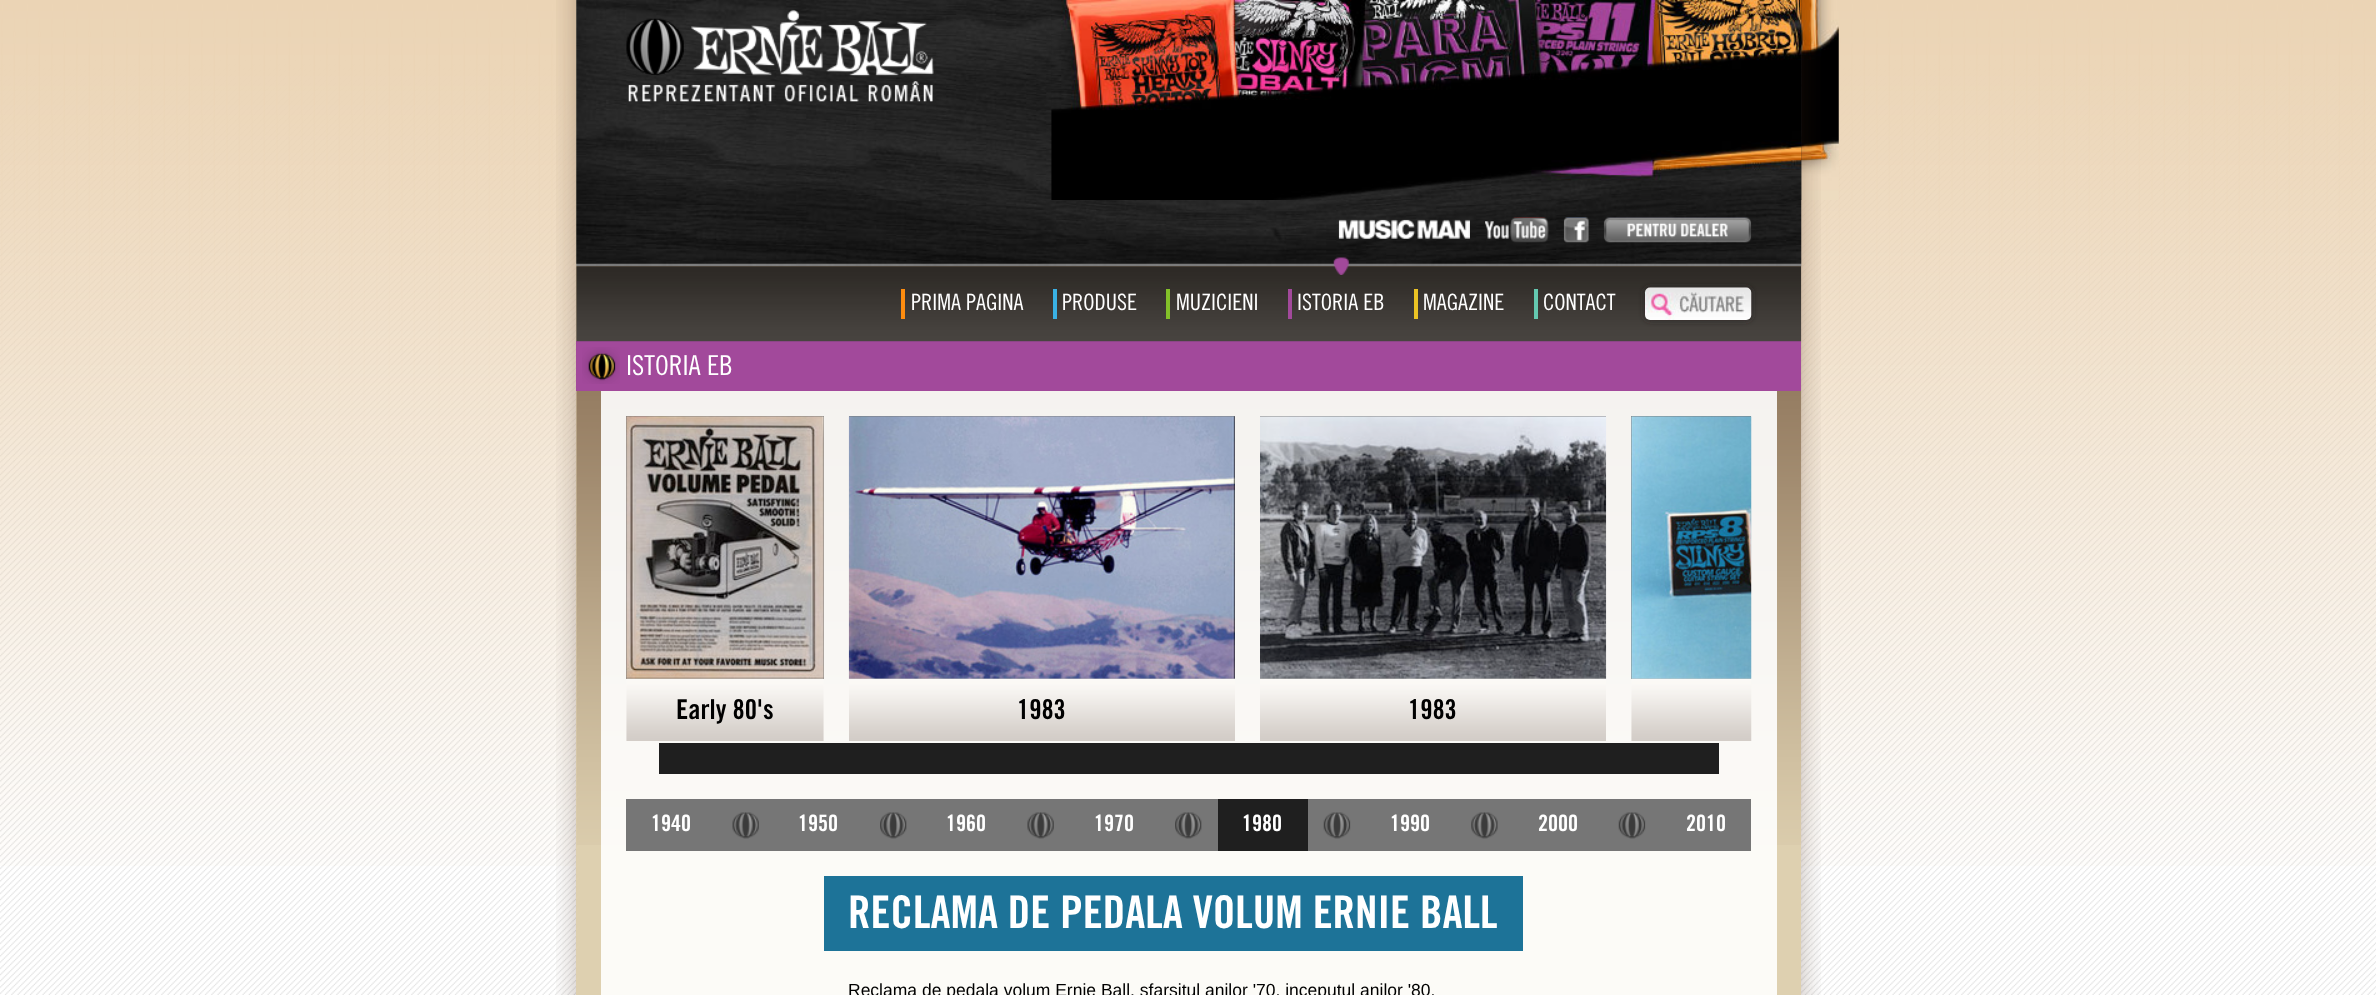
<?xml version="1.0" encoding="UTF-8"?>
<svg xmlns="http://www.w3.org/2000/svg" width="2376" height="995">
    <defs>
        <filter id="blur1" x="-50%" y="-200%" width="200%" height="500%"><feGaussianBlur stdDeviation="3"/></filter>
    </defs>
    <rect width="100%" height="100%" fill="#FFFFFF"/>
    <image x="0" y="11" width="2376" height="984" href="img_01.png"/>
    <image x="0" y="0" width="2376" height="866" href="img_02.png"/>
    <image x="1801" y="0" width="38" height="200" href="img_04.png"/>
    <image x="556" y="0" width="1265" height="995" href="img_03.png"/>
    <rect x="576" y="0" width="1225" height="995" fill="#DED0B0"/>
    <image x="576" y="0" width="1226" height="267" href="img_05.png"/>
    <image x="1051" y="0" width="751" height="200" href="img_06.png"/>
    <image x="626" y="9" width="308" height="93" href="img_07.png"/>
    <image x="1338" y="219" width="132" height="20" href="img_08.png"/>
    <image x="1485" y="217" width="64" height="26" href="img_09.png"/>
    <image x="1563" y="217" width="26" height="26" href="img_10.png"/>
    <image x="1603" y="217" width="149" height="26" href="img_11.png"/>
    <image x="576" y="266" width="1226" height="579" href="img_12.png"/>
    <rect x="576" y="341" width="1225" height="50" fill="#A2499B"/>
    <image x="576" y="266" width="1226" height="76" href="img_13.png"/>
    <rect x="901" y="289" width="4" height="30" fill="#FD8C0F"/>
    <text x="911" y="310" font-family="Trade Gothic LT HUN" font-size="22.5" font-weight="500" fill="#FFFFFF">PRIMA PAGINA</text>
    <rect x="1053" y="289" width="4" height="30" fill="#3AB1E4"/>
    <text x="1062" y="310" font-family="Trade Gothic LT HUN" font-size="22.5" font-weight="500" fill="#FFFFFF">PRODUSE</text>
    <rect x="1166" y="289" width="4" height="30" fill="#83C029"/>
    <text x="1176" y="310" font-family="Trade Gothic LT HUN" font-size="22.5" font-weight="500" fill="#FFFFFF">MUZICIENI</text>
    <image x="1333" y="257" width="16" height="18" href="img_14.png"/>
    <rect x="1288" y="289" width="4" height="30" fill="#A2499B"/>
    <text x="1297" y="310" font-family="Trade Gothic LT HUN" font-size="22.5" font-weight="500" fill="#FFFFFF">ISTORIA EB</text>
    <rect x="1414" y="289" width="4" height="30" fill="#EBC324"/>
    <text x="1423" y="310" font-family="Trade Gothic LT HUN" font-size="22.5" font-weight="500" fill="#FFFFFF">MAGAZINE</text>
    <rect x="1534" y="289" width="4" height="30" fill="#64C8B0"/>
    <text x="1543" y="310" font-family="Trade Gothic LT HUN" font-size="22.5" font-weight="500" fill="#FFFFFF">CONTACT</text>
    <rect x="1645" y="288" width="106" height="32" rx="5" fill="#292625" filter="url(#blur1)"/>
    <image x="1644" y="287" width="108" height="33" href="img_15.png"/>
    <rect x="601" y="391" width="1176" height="604" fill="#FFFFFF" fill-opacity="0.9"/>
    <image x="582" y="347" width="38" height="37" href="img_16.png"/>
    <text x="626" y="375" font-family="Trade Gothic LT HUN" font-size="27.5" font-weight="500" fill="#FFFFFF">ISTORIA EB</text>
    <rect x="626" y="416" width="198" height="263" fill="#767676"/>
    <image x="626" y="416" width="198" height="263" href="img_17.png"/>
    <image x="626" y="678" width="198" height="63" href="img_18.png"/>
    <text x="676" y="719" font-family="Trade Gothic LT HUN" font-size="27.5" font-weight="700" fill="#000000">Early 80's</text>
    <rect x="849" y="416" width="386" height="263" fill="#767676"/>
    <image x="848" y="416" width="387" height="263" href="img_19.png"/>
    <image x="849" y="678" width="386" height="63" href="img_20.png"/>
    <text x="1017" y="719" font-family="Trade Gothic LT HUN" font-size="27.5" font-weight="700" fill="#000000">1983</text>
    <rect x="1260" y="416" width="346" height="263" fill="#767676"/>
    <image x="1260" y="416" width="347" height="263" href="img_21.png"/>
    <image x="1260" y="678" width="346" height="63" href="img_22.png"/>
    <text x="1408" y="719" font-family="Trade Gothic LT HUN" font-size="27.5" font-weight="700" fill="#000000">1983</text>
    <rect x="1631" y="416" width="120" height="263" fill="#767676"/>
    <image x="1631" y="416" width="121" height="263" href="img_23.png"/>
    <image x="1631" y="678" width="121" height="63" href="img_24.png"/>
    <rect x="659" y="743" width="1060" height="31" fill="#1F1F1F"/>
    <rect x="626" y="799" width="1125" height="52" fill="#767676"/>
    <text x="651" y="831" font-family="Trade Gothic LT HUN" font-size="22.5" font-weight="700" fill="#FFFFFF">1940</text>
    <image x="732" y="812" width="27" height="27" href="img_25.png"/>
    <text x="798" y="831" font-family="Trade Gothic LT HUN" font-size="22.5" font-weight="700" fill="#FFFFFF">1950</text>
    <image x="880" y="812" width="27" height="27" href="img_26.png"/>
    <text x="946" y="831" font-family="Trade Gothic LT HUN" font-size="22.5" font-weight="700" fill="#FFFFFF">1960</text>
    <image x="1027" y="812" width="27" height="27" href="img_27.png"/>
    <text x="1094" y="831" font-family="Trade Gothic LT HUN" font-size="22.5" font-weight="700" fill="#FFFFFF">1970</text>
    <image x="1175" y="812" width="27" height="27" href="img_28.png"/>
    <rect x="1218" y="799" width="90" height="52" fill="#1F1F1F"/>
    <text x="1242" y="831" font-family="Trade Gothic LT HUN" font-size="22.5" font-weight="700" fill="#FFFFFF">1980</text>
    <image x="1323" y="812" width="28" height="27" href="img_29.png"/>
    <text x="1390" y="831" font-family="Trade Gothic LT HUN" font-size="22.5" font-weight="700" fill="#FFFFFF">1990</text>
    <image x="1471" y="812" width="27" height="27" href="img_30.png"/>
    <text x="1538" y="831" font-family="Trade Gothic LT HUN" font-size="22.5" font-weight="700" fill="#FFFFFF">2000</text>
    <image x="1618" y="812" width="28" height="27" href="img_29.png"/>
    <text x="1686" y="831" font-family="Trade Gothic LT HUN" font-size="22.5" font-weight="700" fill="#FFFFFF">2010</text>
    <rect x="824" y="876" width="699" height="75" fill="#1D7398"/>
    <text x="848" y="928" font-family="Trade Gothic LT HUN" font-size="45" font-weight="700" fill="#FFFFFF">RECLAMA DE PEDALA VOLUM ERNIE BALL</text>
    <text x="848" y="996" font-family="Liberation Sans" font-size="17.5" fill="#000000">Reclama de pedala volum Ernie Ball, sfarsitul anilor '70, inceputul anilor '80.</text>
</svg>
